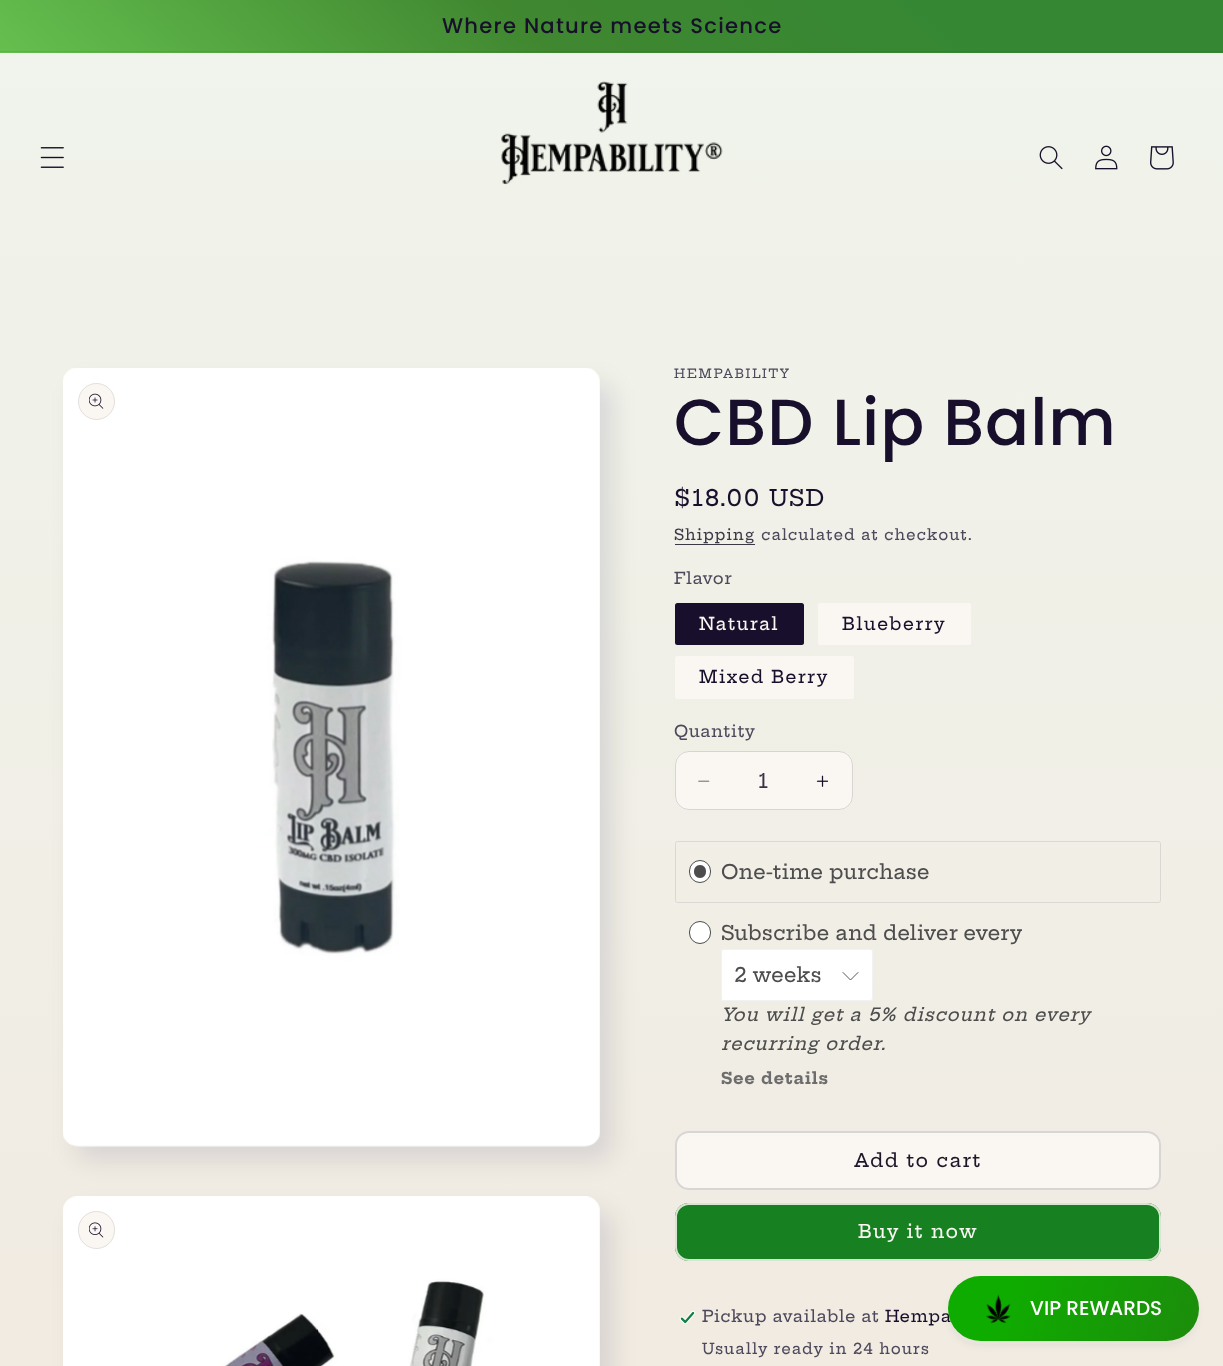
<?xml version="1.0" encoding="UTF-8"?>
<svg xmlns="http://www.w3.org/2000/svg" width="1223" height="1366">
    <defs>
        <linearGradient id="g1" gradientUnits="userSpaceOnUse" x1="612" y1="0" x2="612" y2="1366"><stop offset="0" stop-color="#F0F4EC"/><stop offset="1" stop-color="#F1EBE2"/></linearGradient>
        <linearGradient id="g2" gradientUnits="userSpaceOnUse" x1="-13" y1="1354" x2="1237" y2="13"><stop offset="0.44" stop-color="#74D65B"/><stop offset="0.73" stop-color="#408730"/><stop offset="0.89" stop-color="#368734"/></linearGradient>
        <linearGradient id="g3" gradientUnits="userSpaceOnUse" x1="-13" y1="1354" x2="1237" y2="13"><stop offset="0.44" stop-color="#6DC657"/><stop offset="0.73" stop-color="#3D7D30"/><stop offset="0.89" stop-color="#347D33"/></linearGradient>
        <filter id="blur1" x="-50%" y="-200%" width="200%" height="500%"><feGaussianBlur stdDeviation="12.5"/></filter>
        <filter id="blur2" x="-50%" y="-200%" width="200%" height="500%"><feGaussianBlur stdDeviation="5"/></filter>
        <linearGradient id="g4" gradientUnits="userSpaceOnUse" x1="951" y1="1266" x2="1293" y2="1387"><stop offset="0.17" stop-color="#0FAC00"/><stop offset="1" stop-color="#237B12"/></linearGradient>
    </defs>
    <rect width="100%" height="100%" fill="#FFFFFF"/>
    <rect x="0" y="53" width="1223" height="1313" fill="url(#g1)"/>
    <rect x="0" y="0" width="1223" height="53" fill="url(#g2)"/>
    <rect x="0" y="51" width="1223" height="1" fill="url(#g3)"/>
    <text x="442" y="33" font-family="Poppins" font-size="21.1" font-weight="500" letter-spacing="1.25" fill="#170F2B">Where Nature meets Science</text>
    <image x="40" y="147" width="24" height="21" href="img_01.png"/>
    <image x="501" y="81" width="222" height="104" href="img_02.png"/>
    <image x="1039" y="146" width="24" height="24" href="img_03.png"/>
    <image x="1095" y="145" width="23" height="25" href="img_04.png"/>
    <image x="1150" y="146" width="24" height="24" href="img_05.png"/>
    <rect x="75" y="383" width="538" height="778" rx="15" fill="#170F2B" fill-opacity="0.1" filter="url(#blur1)"/>
    <rect x="63" y="368" width="537" height="778" rx="15" fill="url(#g1)"/>
    <image x="63" y="368" width="537" height="779" href="img_06.png"/>
    <circle cx="96.5" cy="401.5" r="18.5" fill="#FAF7F2"/>
    <circle cx="96.5" cy="401.5" r="18" fill="none" stroke="#170F2B" stroke-opacity="0.1"/>
    <image x="89" y="393" width="15" height="16" href="img_07.png"/>
    <rect x="75" y="1211" width="538" height="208" rx="15" fill="#170F2B" fill-opacity="0.1" filter="url(#blur1)"/>
    <path d="M 78 1196 H 585 C 593.5 1196 600 1202.5 600 1211 V 1366 H 63 V 1211 C 63 1202.5 69.5 1196 78 1196 Z" fill="url(#g1)"/>
    <image x="63" y="1196" width="537" height="170" href="img_08.png"/>
    <rect x="78" y="1211" width="37" height="38" rx="18.5" fill="#FAF7F2"/>
    <rect x="78.5" y="1211.5" width="36" height="37" rx="18" fill="none" stroke="#170F2B" stroke-opacity="0.1"/>
    <image x="89" y="1222" width="15" height="16" href="img_09.png"/>
    <text x="674" y="378" font-family="Hepta Slab" font-size="12.5" font-weight="500" letter-spacing="1.6" fill="#4D485B">HEMPABILITY</text>
    <text x="674" y="445" font-family="Poppins" font-size="65" font-weight="500" letter-spacing="1" fill="#170F2B">CBD Lip Balm</text>
    <text x="674" y="506" font-family="Hepta Slab" font-size="22.5" font-weight="500" letter-spacing="1.6" fill="#170F2B">$18.00 USD</text>
    <text x="674" y="540" font-family="Hepta Slab" font-size="15" font-weight="500" letter-spacing="0.9" fill="#3D3846">Shipping</text>
    <rect x="675" y="544" width="80" height="1" fill="#3D3846"/>
    <text x="761" y="540" font-family="Hepta Slab" font-size="15" font-weight="500" letter-spacing="0.9" fill="#4D485B">calculated at checkout.</text>
    <text x="674" y="584" font-family="Hepta Slab" font-size="16.25" font-weight="500" letter-spacing="0.5" fill="#4D485B">Flavor</text>
    <rect x="675" y="603" width="129" height="42" rx="2.5" fill="#170F2B"/>
    <text x="699" y="630" font-family="Hepta Slab" font-size="17.5" font-weight="500" letter-spacing="1.25" fill="#FAF7F2">Natural</text>
    <rect x="818" y="603" width="153" height="42" rx="2.5" fill="#FAF7F2"/>
    <text x="842" y="630" font-family="Hepta Slab" font-size="17.5" font-weight="500" letter-spacing="1.25" fill="#170F2B">Blueberry</text>
    <rect x="675" y="656" width="179" height="43" rx="2.5" fill="#FAF7F2"/>
    <text x="699" y="683" font-family="Hepta Slab" font-size="17.5" font-weight="500" letter-spacing="1.25" fill="#170F2B">Mixed Berry</text>
    <text x="674" y="737" font-family="Hepta Slab" font-size="16.25" font-weight="500" letter-spacing="0.5" fill="#4D485B">Quantity</text>
    <rect x="675" y="751" width="178" height="59" rx="14" fill="#FAF7F2"/>
    <image x="698" y="780" width="12" height="2" href="img_10.png"/>
    <image x="816" y="775" width="13" height="12" href="img_11.png"/>
    <rect x="675.5" y="751.5" width="177" height="58" rx="13.5" fill="none" stroke="#170F2B" stroke-opacity="0.15"/>
    <text x="758" y="788" font-family="Hepta Slab" font-size="20" font-weight="500" fill="#393249">1</text>
    <rect x="675.5" y="841.5" width="485" height="61" rx="2" fill="none" stroke="#D9D8D4"/>
    <rect x="689.5" y="860.5" width="21" height="22" rx="10.5" fill="#FFFFFF" stroke="#4D4D4D"/>
    <path d="M 700 865 C 692 865 692 878 700 878 C 708 878 708 865 700 865 Z" fill="#4D4D4D"/>
    <text x="721" y="879" font-family="Hepta Slab" font-size="20" font-weight="500" fill="#4D4D4D">One-time purchase</text>
    <rect x="689.5" y="921.5" width="21" height="22" rx="10.5" fill="#FFFFFF" stroke="#4D4D4D"/>
    <text x="721" y="940" font-family="Hepta Slab" font-size="20" font-weight="500" fill="#4D4D4D">Subscribe and deliver every</text>
    <rect x="721" y="949" width="152" height="52" rx="2.5" fill="#FFFFFF"/>
    <path d="M 843 972.5 L 850.5 980 L 858 972.5" fill="none" stroke="#585858" stroke-linecap="round"/>
    <rect x="721.5" y="949.5" width="151" height="51" rx="2" fill="none" stroke="#C4C4C4" stroke-opacity="0.22"/>
    <text x="734" y="982" font-family="Hepta Slab" font-size="20" font-weight="500" fill="#4D4D4D">2 weeks</text>
    <text font-family="Hepta Slab" font-size="18" font-weight="500" font-style="italic" letter-spacing="0.75" fill="#4D4D4D">
        <tspan x="721" y="1021">You will get a 5% discount on every</tspan>
        <tspan x="721" y="1050">recurring order.</tspan>
    </text>
    <text x="721" y="1084" font-family="Hepta Slab" font-size="16" font-weight="700" letter-spacing="0.75" fill="#6D6D6D">See details</text>
    <rect x="675" y="1131" width="486" height="59" rx="14" fill="#FAF7F2"/>
    <rect x="675.5" y="1131.5" width="485" height="58" rx="13.5" fill="none" stroke="#FAF7F2"/>
    <rect x="676" y="1132" width="484" height="57" rx="13" fill="none" stroke="#1D1829" stroke-opacity="0.15" stroke-width="2"/>
    <text x="854" y="1167" font-family="Hepta Slab" font-size="18.75" font-weight="500" letter-spacing="1.25" fill="#1D1829">Add to cart</text>
    <rect x="675" y="1203" width="486" height="58" rx="14" fill="#178122"/>
    <rect x="675.5" y="1203.5" width="485" height="57" rx="13.5" fill="none" stroke="#178122"/>
    <rect x="676" y="1204" width="484" height="56" rx="13" fill="none" stroke="#FAF7F2" stroke-opacity="0.85" stroke-width="2"/>
    <text x="858" y="1238" font-family="Hepta Slab" font-size="18.75" font-weight="500" letter-spacing="1.25" fill="#FAF7F2">Buy it now</text>
    <image x="679" y="1310" width="17" height="15" href="img_12.png"/>
    <text x="702" y="1322" font-family="Hepta Slab" font-size="16.25" font-weight="500" letter-spacing="0.5" fill="#4D485B">Pickup available at</text>
    <text x="885" y="1322" font-family="Hepta Slab" font-size="16.25" font-weight="500" letter-spacing="0.5" fill="#170F2B">Hempa</text>
    <text x="702" y="1354" font-family="Hepta Slab" font-size="15" font-weight="500" letter-spacing="0.9" fill="#4D485B">Usually ready in 24 hours</text>
    <rect x="950" y="1284" width="246" height="60" rx="30" fill="#444444" fill-opacity="0.08" filter="url(#blur2)"/>
    <rect x="948" y="1276" width="251" height="65" rx="32.5" fill="url(#g4)"/>
    <image x="986" y="1294" width="25" height="29" href="img_13.png"/>
    <text x="1030" y="1315" font-family="Poppins" font-size="20" font-weight="500" fill="#FFFFFF">VIP REWARDS</text>
</svg>
